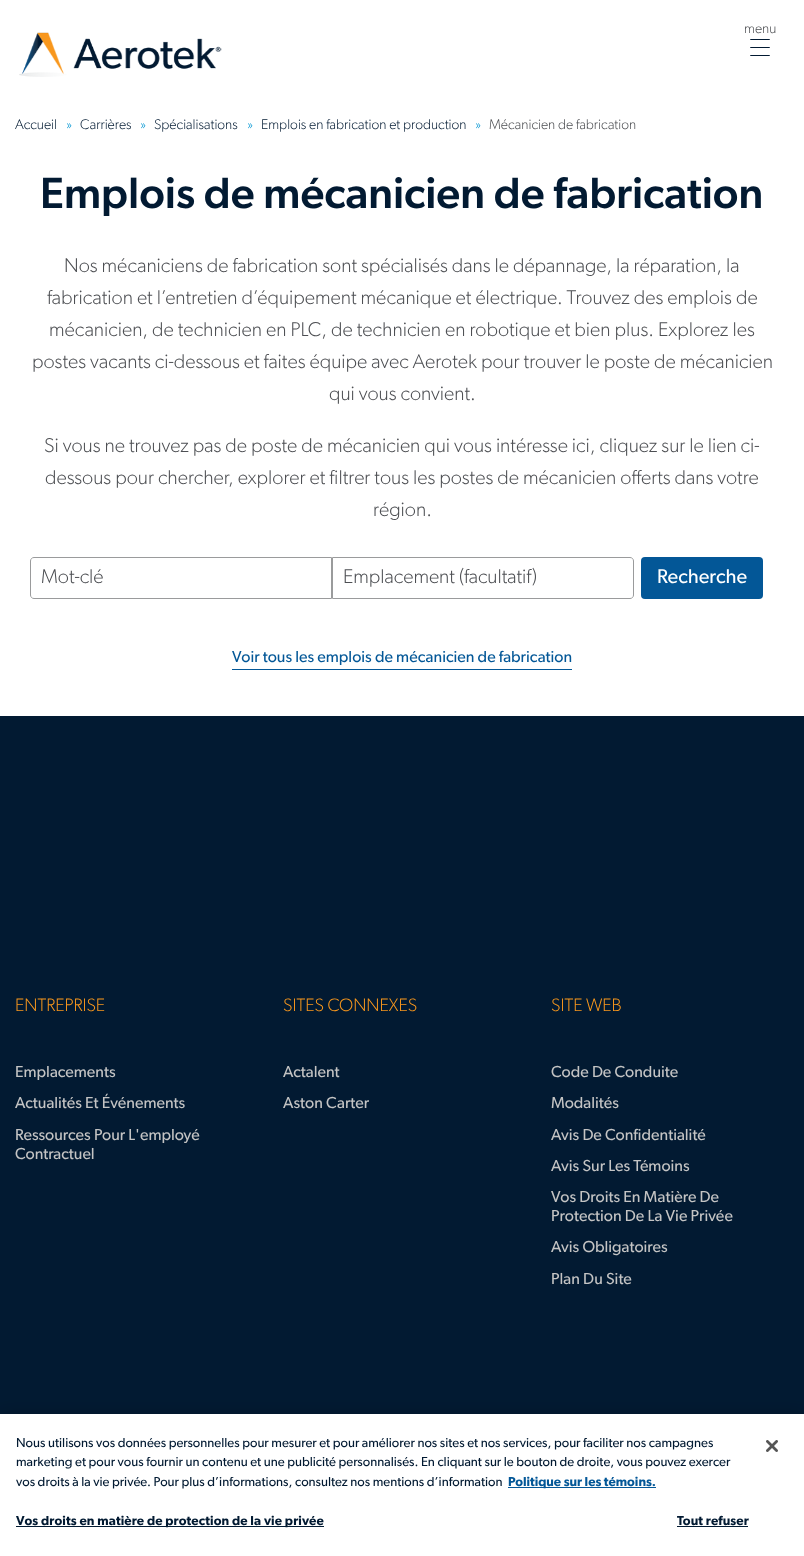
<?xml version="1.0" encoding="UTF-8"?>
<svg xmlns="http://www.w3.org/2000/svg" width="804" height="1556">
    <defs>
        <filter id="blur1" x="-50%" y="-200%" width="200%" height="500%"><feGaussianBlur stdDeviation="9"/></filter>
    </defs>
    <rect width="100%" height="100%" fill="#FFFFFF"/>
    <text x="744" y="33" font-family="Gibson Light" font-size="14" font-weight="300" fill="#4D4F53">menu</text>
    <path d="M 769 39.5 H 751 Z M 769 55.5 H 751 Z M 769 47.5 H 751 Z" fill="none" stroke="#021A32" stroke-linecap="square"/>
    <image x="19" y="32" width="203" height="45" href="img_01.png"/>
    <text x="15" y="129" font-family="Gibson Light" font-size="14" font-weight="300" fill="#021A32">Accueil</text>
    <text x="66" y="129" font-family="Gibson Light" font-size="14" font-weight="300" fill="#0195D3">»</text>
    <text x="80" y="129" font-family="Gibson Light" font-size="14" font-weight="300" fill="#021A32">Carrières</text>
    <text x="140" y="129" font-family="Gibson Light" font-size="14" font-weight="300" fill="#0195D3">»</text>
    <text x="154" y="129" font-family="Gibson Light" font-size="14" font-weight="300" fill="#021A32">Spécialisations</text>
    <text x="247" y="129" font-family="Gibson Light" font-size="14" font-weight="300" fill="#0195D3">»</text>
    <text x="261" y="129" font-family="Gibson Light" font-size="14" font-weight="300" fill="#021A32">Emplois en fabrication et production</text>
    <text x="475" y="129" font-family="Gibson Light" font-size="14" font-weight="300" fill="#0195D3">»</text>
    <text x="489" y="129" font-family="Gibson Light" font-size="14" font-weight="300" fill="#4D4F53">Mécanicien de fabrication</text>
    <text x="40" y="208" font-family="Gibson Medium" font-size="44" font-weight="500" fill="#021A32">Emplois de mécanicien de fabrication</text>
    <text x="64" y="272" font-family="Gibson Light" font-size="20" font-weight="300" fill="#4D4F53">Nos mécaniciens de fabrication sont spécialisés dans le dépannage, la réparation, la</text>
    <text x="47" y="304" font-family="Gibson Light" font-size="20" font-weight="300" fill="#4D4F53">fabrication et l’entretien d’équipement mécanique et électrique. Trouvez des emplois de</text>
    <text x="49" y="336" font-family="Gibson Light" font-size="20" font-weight="300" fill="#4D4F53">mécanicien, de technicien en PLC, de technicien en robotique et bien plus. Explorez les</text>
    <text x="32" y="368" font-family="Gibson Light" font-size="20" font-weight="300" fill="#4D4F53">postes vacants ci-dessous et faites équipe avec Aerotek pour trouver le poste de mécanicien</text>
    <text x="329" y="400" font-family="Gibson Light" font-size="20" font-weight="300" fill="#4D4F53">qui vous convient.</text>
    <text x="44" y="452" font-family="Gibson Light" font-size="20" font-weight="300" fill="#4D4F53">Si vous ne trouvez pas de poste de mécanicien qui vous intéresse ici, cliquez sur le lien ci-</text>
    <text x="45" y="484" font-family="Gibson Light" font-size="20" font-weight="300" fill="#4D4F53">dessous pour chercher, explorer et filtrer tous les postes de mécanicien offerts dans votre</text>
    <text x="373" y="516" font-family="Gibson Light" font-size="20" font-weight="300" fill="#4D4F53">région.</text>
    <path d="M 34 557.5 H 331.5 V 598.5 H 34 C 32 598.5 30.5 597 30.5 595 V 561 C 30.5 559 32 557.5 34 557.5 Z" fill="none" stroke="#9A9B9C"/>
    <text x="41" y="583" font-family="Gibson Light" font-size="20" font-weight="300" fill="#4D4F53">Mot-clé</text>
    <path d="M 332.5 557.5 H 630 C 632 557.5 633.5 559 633.5 561 V 595 C 633.5 597 632 598.5 630 598.5 H 332.5 Z" fill="none" stroke="#9A9B9C"/>
    <text x="343" y="583" font-family="Gibson Light" font-size="20" font-weight="300" fill="#4D4F53">Emplacement (facultatif)</text>
    <rect x="641" y="557" width="122" height="42" rx="4" fill="#035797"/>
    <text x="657" y="583" font-family="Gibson" font-size="20" fill="#FFFFFF">Recherche</text>
    <text x="232" y="662" font-family="Gibson" font-size="16" fill="#035797">Voir tous les emplois de mécanicien de fabrication</text>
    <rect x="232" y="669" width="340" height="1" fill="#035797"/>
    <rect x="0" y="716" width="804" height="698" fill="#021A32"/>
    <text x="15" y="1011" font-family="Gibson Light" font-size="18" font-weight="300" fill="#F8971D">ENTREPRISE</text>
    <text font-family="Gibson" font-size="16" fill="#C4C4C4">
        <tspan x="15" y="1077">Emplacements</tspan>
        <tspan x="15" y="1108">Actualités Et Événements</tspan>
    </text>
    <text font-family="Gibson" font-size="16" fill="#C4C4C4">
        <tspan x="15" y="1140">Ressources Pour L'employé</tspan>
        <tspan x="15" y="1159">Contractuel</tspan>
    </text>
    <text x="283" y="1011" font-family="Gibson Light" font-size="18" font-weight="300" fill="#F8971D">SITES CONNEXES</text>
    <text font-family="Gibson" font-size="16" fill="#C4C4C4">
        <tspan x="283" y="1077">Actalent</tspan>
        <tspan x="283" y="1108">Aston Carter</tspan>
    </text>
    <text x="551" y="1011" font-family="Gibson Light" font-size="18" font-weight="300" fill="#F8971D">SITE WEB</text>
    <text font-family="Gibson" font-size="16" fill="#C4C4C4">
        <tspan x="551" y="1077">Code De Conduite</tspan>
        <tspan x="551" y="1108">Modalités</tspan>
    </text>
    <text font-family="Gibson" font-size="16" fill="#C4C4C4">
        <tspan x="551" y="1140">Avis De Confidentialité</tspan>
        <tspan x="551" y="1171">Avis Sur Les Témoins</tspan>
        <tspan x="551" y="1202">Vos Droits En Matière De</tspan>
        <tspan x="551" y="1221">Protection De La Vie Privée</tspan>
        <tspan x="551" y="1252">Avis Obligatoires</tspan>
    </text>
    <text x="551" y="1284" font-family="Gibson" font-size="16" fill="#C4C4C4">Plan Du Site</text>
    <rect x="0" y="1414" width="804" height="142" fill="#000000" fill-opacity="0.2" filter="url(#blur1)"/>
    <rect x="0" y="1414" width="804" height="142" fill="#FFFFFF"/>
    <text font-family="Gibson" font-size="13" fill="#021A32">
        <tspan x="16" y="1447">Nous utilisons vos données personnelles pour mesurer et pour améliorer nos sites et nos services, pour faciliter nos campagnes</tspan>
        <tspan x="16" y="1466">marketing et pour vous fournir un contenu et une publicité personnalisés. En cliquant sur le bouton de droite, vous pouvez exercer</tspan>
        <tspan x="16" y="1486">vos droits à la vie privée. Pour plus d’informations, consultez nos mentions d’information</tspan>
    </text>
    <rect x="508" y="1487" width="148" height="1" fill="#035797"/>
    <text x="508" y="1486" font-family="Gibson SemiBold" font-size="13" font-weight="600" fill="#035797">Politique sur les témoins.</text>
    <rect x="16" y="1526" width="308" height="1" fill="#021A32"/>
    <text x="16" y="1525" font-family="Gibson SemiBold" font-size="13" font-weight="600" letter-spacing="0.13" fill="#021A32">Vos droits en matière de protection de la vie privée</text>
    <text x="677" y="1525" font-family="Gibson SemiBold" font-size="13" font-weight="600" letter-spacing="0.13" fill="#021A32">Tout refuser</text>
    <rect x="677" y="1526" width="71" height="1" fill="#021A32"/>
    <image x="766" y="1440" width="12" height="12" href="img_02.png"/>
</svg>
